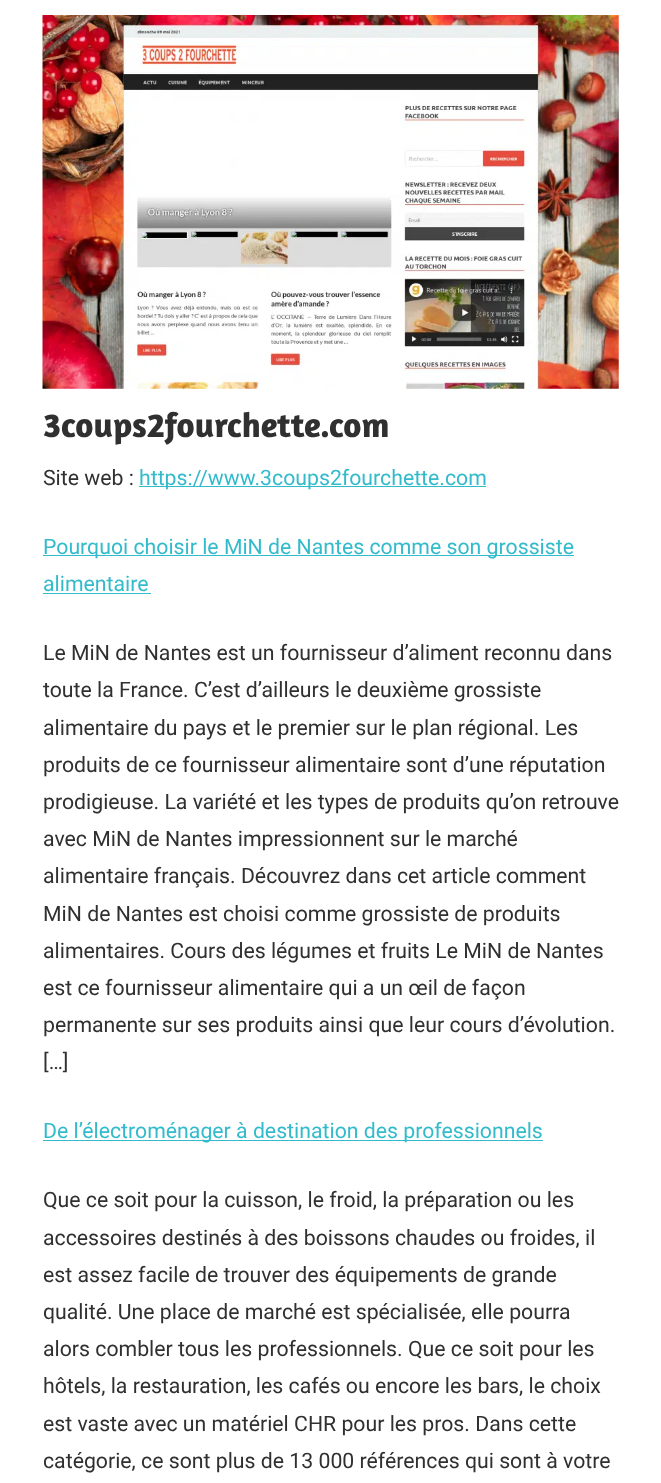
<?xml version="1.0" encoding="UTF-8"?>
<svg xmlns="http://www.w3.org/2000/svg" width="661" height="1483">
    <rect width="100%" height="100%" fill="#FFFFFF"/>
    <image x="42" y="15" width="577" height="374" href="img_01.png"/>
    <text x="43" y="437" font-family="Amaranth" font-size="35" font-weight="700" fill="#303030">3coups2fourchette.com</text>
    <text x="43" y="485" font-family="Roboto" font-size="21.25" fill="#303030">Site web :</text>
    <rect x="139" y="486" width="347" height="1" fill="#33BBCC"/>
    <text x="139" y="485" font-family="Roboto" font-size="21.25" fill="#33BBCC">https://www.3coups2fourchette.com</text>
    <rect x="43" y="555" width="531" height="1" fill="#33BBCC"/>
    <text font-family="Roboto" font-size="21.25" fill="#33BBCC">
        <tspan x="43" y="554">Pourquoi choisir le MiN de Nantes comme son grossiste</tspan>
        <tspan x="43" y="591">alimentaire</tspan>
    </text>
    <rect x="43" y="593" width="108" height="1" fill="#33BBCC"/>
    <text font-family="Roboto" font-size="21.25" fill="#303030">
        <tspan x="43" y="660">Le MiN de Nantes est un fournisseur d’aliment reconnu dans</tspan>
        <tspan x="43" y="697">toute la France. C’est d’ailleurs le deuxième grossiste</tspan>
        <tspan x="43" y="735">alimentaire du pays et le premier sur le plan régional. Les</tspan>
        <tspan x="43" y="772">produits de ce fournisseur alimentaire sont d’une réputation</tspan>
        <tspan x="43" y="809">prodigieuse. La variété et les types de produits qu’on retrouve</tspan>
        <tspan x="43" y="846">avec MiN de Nantes impressionnent sur le marché</tspan>
        <tspan x="43" y="883">alimentaire français. Découvrez dans cet article comment</tspan>
        <tspan x="43" y="921">MiN de Nantes est choisi comme grossiste de produits</tspan>
        <tspan x="43" y="958">alimentaires. Cours des légumes et fruits Le MiN de Nantes</tspan>
        <tspan x="43" y="995">est ce fournisseur alimentaire qui a un œil de façon</tspan>
        <tspan x="43" y="1032">permanente sur ses produits ainsi que leur cours d’évolution.</tspan>
        <tspan x="43" y="1069">[…]</tspan>
    </text>
    <rect x="43" y="1140" width="500" height="1" fill="#33BBCC"/>
    <text x="43" y="1138" font-family="Roboto" font-size="21.25" fill="#33BBCC">De l’électroménager à destination des professionnels</text>
    <text font-family="Roboto" font-size="21.25" fill="#303030">
        <tspan x="43" y="1207">Que ce soit pour la cuisson, le froid, la préparation ou les</tspan>
        <tspan x="43" y="1245">accessoires destinés à des boissons chaudes ou froides, il</tspan>
        <tspan x="43" y="1282">est assez facile de trouver des équipements de grande</tspan>
        <tspan x="43" y="1319">qualité. Une place de marché est spécialisée, elle pourra</tspan>
        <tspan x="43" y="1356">alors combler tous les professionnels. Que ce soit pour les</tspan>
        <tspan x="43" y="1393">hôtels, la restauration, les cafés ou encore les bars, le choix</tspan>
        <tspan x="43" y="1431">est vaste avec un matériel CHR pour les pros. Dans cette</tspan>
        <tspan x="43" y="1468">catégorie, ce sont plus de 13 000 références qui sont à votre</tspan>
    </text>
</svg>
